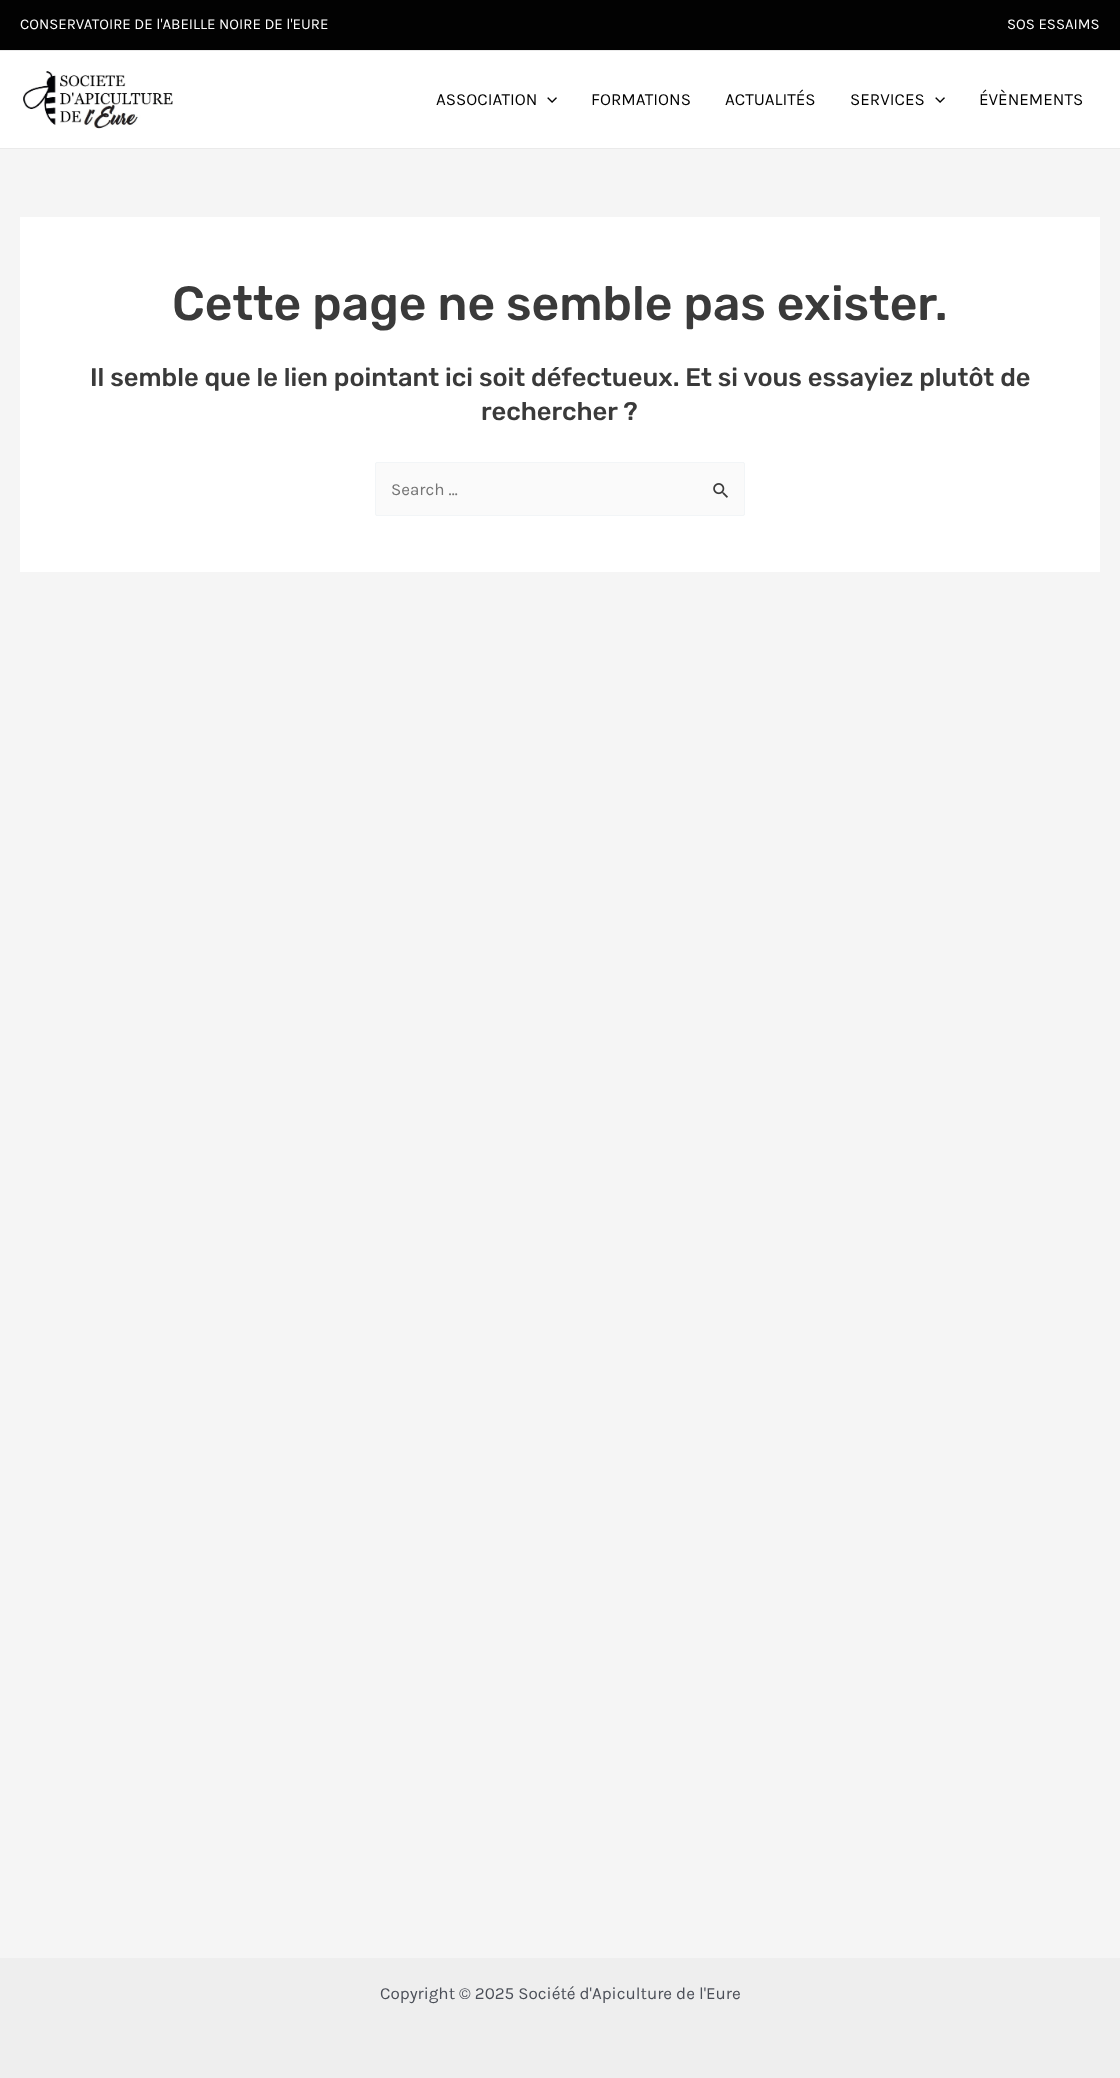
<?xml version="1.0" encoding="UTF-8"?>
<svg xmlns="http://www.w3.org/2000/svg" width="1120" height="2078">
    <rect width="100%" height="100%" fill="#F5F5F5"/>
    <rect x="0" y="0" width="1120" height="50" fill="#020202"/>
    <rect x="0" y="50" width="1120" height="1" fill="#EAEAEA"/>
    <text x="20" y="29" font-family="Karla" font-size="15" fill="#FFFFFF">CONSERVATOIRE DE l'ABEILLE NOIRE DE l'EURE</text>
    <text x="1007" y="29" font-family="Karla" font-size="15" fill="#FFFFFF">SOS ESSAIMS</text>
    <rect x="0" y="51" width="1120" height="97" fill="#FFFFFF"/>
    <rect x="0" y="148" width="1120" height="1" fill="#EAEAEA"/>
    <image x="23" y="71" width="150" height="58" href="img_01.png"/>
    <text x="436" y="105" font-family="Karla" font-size="17" fill="#020202">ASSOCIATION</text>
    <image x="547" y="97" width="10" height="6" href="img_02.png"/>
    <text x="591" y="105" font-family="Karla" font-size="17" fill="#020202">FORMATIONS</text>
    <text x="725" y="105" font-family="Karla" font-size="17" fill="#020202">ACTUALITÉS</text>
    <text x="850" y="105" font-family="Karla" font-size="17" fill="#020202">SERVICES</text>
    <image x="935" y="97" width="10" height="6" href="img_02.png"/>
    <text x="979" y="105" font-family="Karla" font-size="17" fill="#020202">ÉVÈNEMENTS</text>
    <rect x="20" y="217" width="1080" height="355" fill="#FFFFFF"/>
    <text x="172" y="320" font-family="Rubik" font-size="48" font-weight="500" fill="#3A3A3A">Cette page ne semble pas exister.</text>
    <text x="90" y="386" font-family="Rubik" font-size="25.5" font-weight="500" fill="#3A3A3A">Il semble que le lien pointant ici soit défectueux. Et si vous essayiez plutôt de</text>
    <text x="481" y="420" font-family="Rubik" font-size="25.5" font-weight="500" fill="#3A3A3A">rechercher ?</text>
    <rect x="375.5" y="462.5" width="369" height="53" rx="1.5" fill="#FAFAFA" stroke="#F2F5F7"/>
    <text x="391" y="495" font-family="Karla" font-size="17" fill="#757575">Search …</text>
    <image x="713" y="483" width="15" height="15" href="img_03.png"/>
    <rect x="0" y="1958" width="1120" height="120" fill="#EEEEEE"/>
    <text x="380" y="1999" font-family="Karla" font-size="17" fill="#4B4F58">Copyright © 2025 Société d'Apiculture de l'Eure</text>
</svg>
